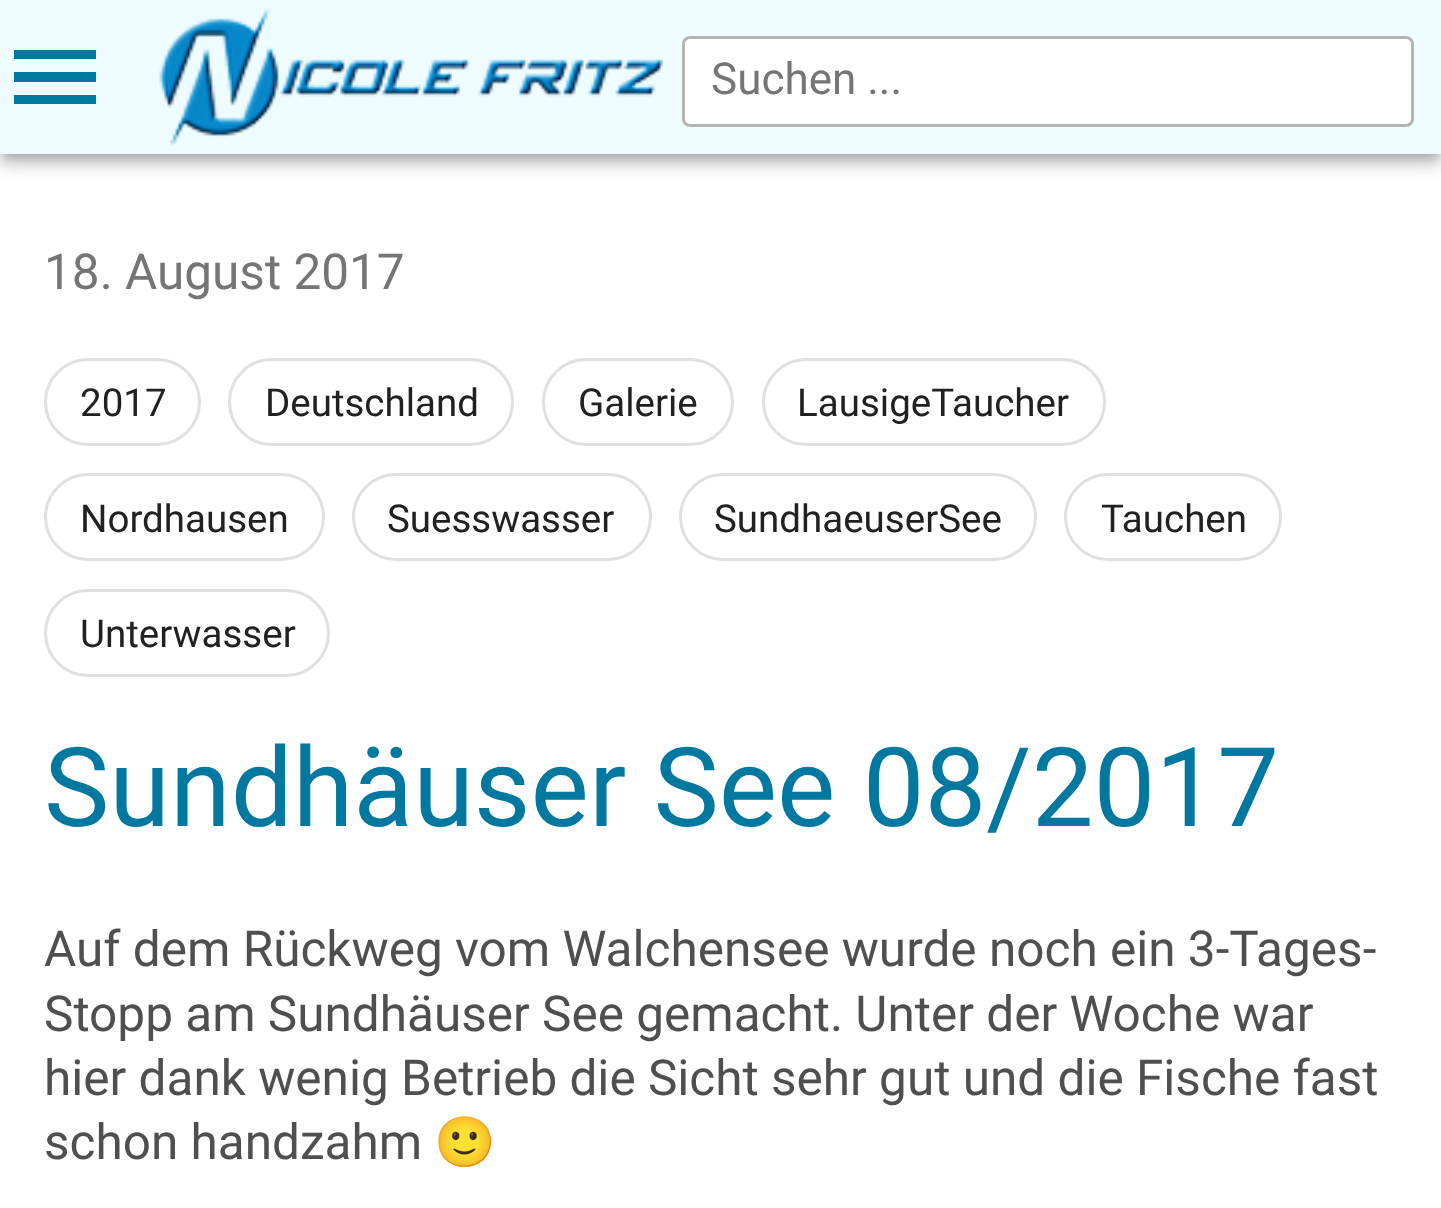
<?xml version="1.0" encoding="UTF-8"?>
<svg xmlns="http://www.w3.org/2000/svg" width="1441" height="1208">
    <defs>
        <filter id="blur1" x="-50%" y="-200%" width="200%" height="500%"><feGaussianBlur stdDeviation="14"/></filter>
        <filter id="blur2" x="-50%" y="-200%" width="200%" height="500%"><feGaussianBlur stdDeviation="7"/></filter>
        <filter id="blur3" x="-50%" y="-200%" width="200%" height="500%"><feGaussianBlur stdDeviation="5.5"/></filter>
    </defs>
    <rect width="100%" height="100%" fill="#FFFFFF"/>
    <rect x="0" y="3" width="1441" height="154" fill="#000000" fill-opacity="0.12" filter="url(#blur1)"/>
    <rect x="0" y="11" width="1441" height="154" fill="#000000" fill-opacity="0.14" filter="url(#blur2)"/>
    <rect x="3" y="8" width="1435" height="149" fill="#000000" fill-opacity="0.2" filter="url(#blur3)"/>
    <rect x="0" y="0" width="1441" height="154" fill="#EEFBFF"/>
    <path d="M 14 50 H 96 V 59 H 14 Z M 14 82 V 72 H 96 V 82 Z M 14 104 V 95 H 96 V 104 Z" fill="#0178A0"/>
    <image x="159" y="8" width="504" height="138" href="img_01.png"/>
    <rect x="683.5" y="37.5" width="729" height="88" rx="6.5" fill="#FFFFFF" stroke="#B5B5B5" stroke-width="3"/>
    <text x="711" y="94" font-family="Roboto" font-size="44" fill="#757575">Suchen ...</text>
    <text x="44" y="289" font-family="Roboto" font-size="49.5" fill="#757575">18. August 2017</text>
    <rect x="45.5" y="359.5" width="154" height="85" rx="42.5" fill="none" stroke="#E0E0E0" stroke-width="3"/>
    <text x="80" y="416" font-family="Roboto" font-size="38.5" fill="#212121">2017</text>
    <rect x="229.5" y="359.5" width="283" height="85" rx="42.5" fill="none" stroke="#E0E0E0" stroke-width="3"/>
    <text x="265" y="416" font-family="Roboto" font-size="38.5" fill="#212121">Deutschland</text>
    <rect x="543.5" y="359.5" width="189" height="85" rx="42.5" fill="none" stroke="#E0E0E0" stroke-width="3"/>
    <text x="578" y="416" font-family="Roboto" font-size="38.5" fill="#212121">Galerie</text>
    <rect x="763.5" y="359.5" width="341" height="85" rx="42.5" fill="none" stroke="#E0E0E0" stroke-width="3"/>
    <text x="797" y="416" font-family="Roboto" font-size="38.5" fill="#212121">LausigeTaucher</text>
    <rect x="45.5" y="474.5" width="278" height="85" rx="42.5" fill="none" stroke="#E0E0E0" stroke-width="3"/>
    <text x="80" y="532" font-family="Roboto" font-size="38.5" fill="#212121">Nordhausen</text>
    <rect x="353.5" y="474.5" width="297" height="85" rx="42.5" fill="none" stroke="#E0E0E0" stroke-width="3"/>
    <text x="387" y="532" font-family="Roboto" font-size="38.5" fill="#212121">Suesswasser</text>
    <rect x="680.5" y="474.5" width="355" height="85" rx="42.5" fill="none" stroke="#E0E0E0" stroke-width="3"/>
    <text x="714" y="532" font-family="Roboto" font-size="38.5" fill="#212121">SundhaeuserSee</text>
    <rect x="1065.5" y="474.5" width="215" height="85" rx="42.5" fill="none" stroke="#E0E0E0" stroke-width="3"/>
    <text x="1101" y="532" font-family="Roboto" font-size="38.5" fill="#212121">Tauchen</text>
    <rect x="45.5" y="590.5" width="283" height="85" rx="42.5" fill="none" stroke="#E0E0E0" stroke-width="3"/>
    <text x="80" y="647" font-family="Roboto" font-size="38.5" fill="#212121">Unterwasser</text>
    <text x="44" y="826" font-family="Roboto" font-size="110" fill="#0178A0">Sundhäuser See 08/2017</text>
    <text font-family="Roboto" font-size="49.5" fill="#4F4F4F">
        <tspan x="44" y="966">Auf dem Rückweg vom Walchensee wurde noch ein 3-Tages-</tspan>
        <tspan x="44" y="1031">Stopp am Sundhäuser See gemacht. Unter der Woche war</tspan>
        <tspan x="44" y="1095">hier dank wenig Betrieb die Sicht sehr gut und die Fische fast</tspan>
        <tspan x="44" y="1159">schon handzahm</tspan>
    </text>
    <text x="434" y="1159" font-family="Noto Color Emoji" font-size="49.5" fill="#4F4F4F">🙂</text>
</svg>
